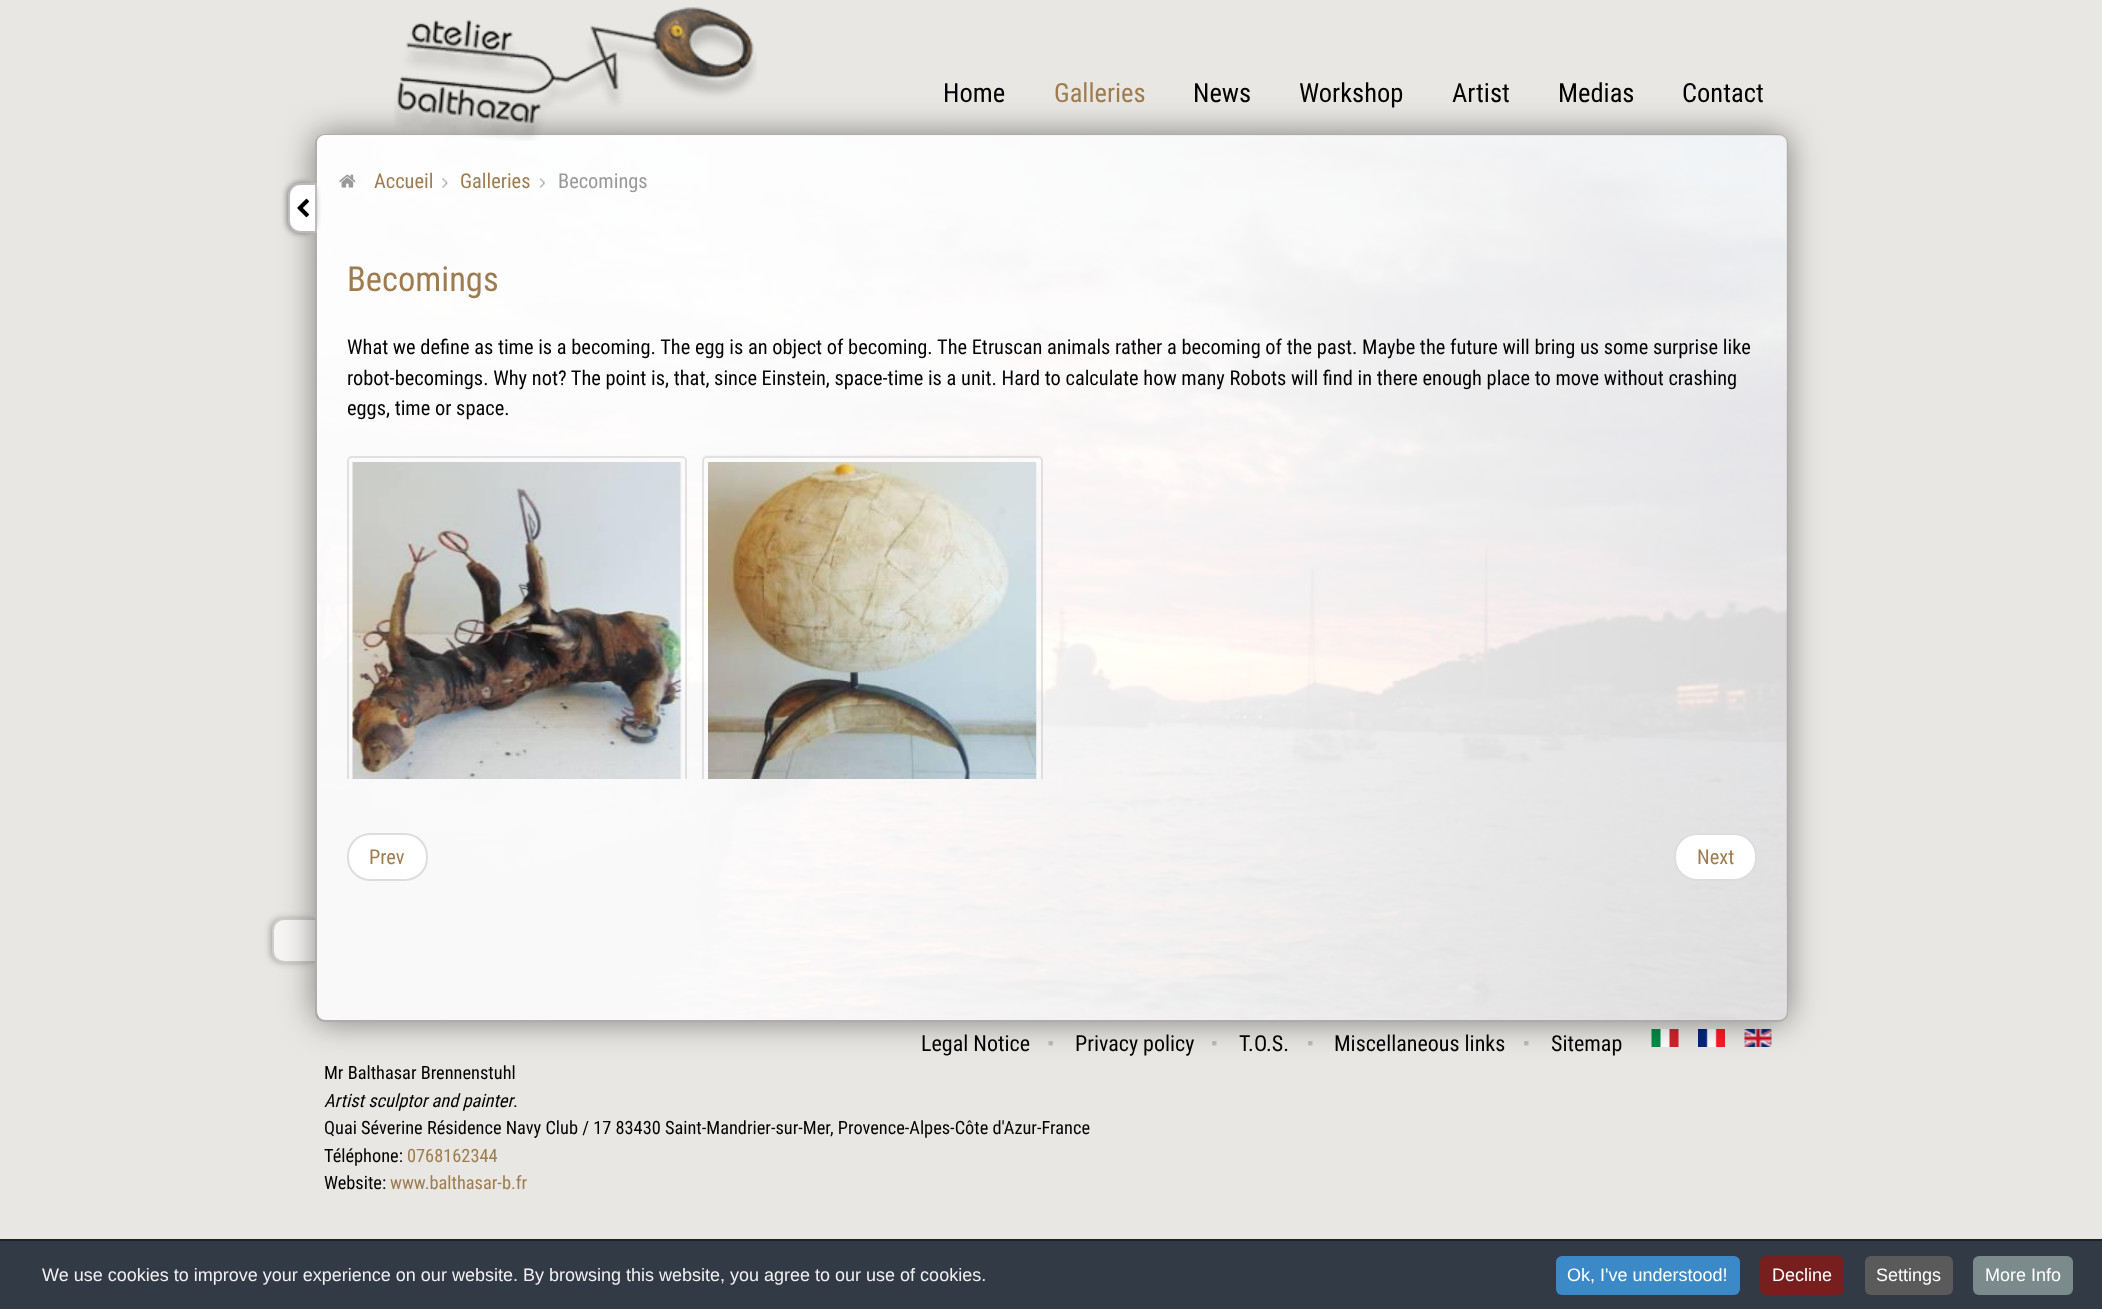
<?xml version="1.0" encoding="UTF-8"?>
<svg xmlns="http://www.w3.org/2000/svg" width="2102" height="1309">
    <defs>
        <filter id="blur1" x="-50%" y="-200%" width="200%" height="500%"><feGaussianBlur stdDeviation="3"/></filter>
        <filter id="blur2" x="-50%" y="-200%" width="200%" height="500%"><feGaussianBlur stdDeviation="16.5"/></filter>
        <linearGradient id="g1" gradientUnits="userSpaceOnUse" x1="317" y1="578" x2="1787" y2="577"><stop offset="0" stop-color="#FFFFFF" stop-opacity="0.95"/><stop offset="0.25" stop-color="#FFFFFF" stop-opacity="0.95"/><stop offset="1" stop-color="#FFFFFF" stop-opacity="0.69"/></linearGradient>
        <clipPath id="clip1"><rect x="347" y="438" width="340" height="341"/></clipPath>
        <clipPath id="clip2"><rect x="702" y="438" width="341" height="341"/></clipPath>
        <clipPath id="clip3"><path d="M 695 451 H 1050 V 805 H 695 Z M 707 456 H 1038 C 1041 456 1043 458 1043 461 V 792 C 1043 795 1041 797 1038 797 H 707 C 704 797 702 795 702 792 V 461 C 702 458 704 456 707 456 Z" clip-rule="evenodd"/></clipPath>
        <filter id="blur3" x="-50%" y="-200%" width="200%" height="500%"><feGaussianBlur stdDeviation="2"/></filter>
        <clipPath id="clip4"><rect x="702" y="438" width="341" height="341"/></clipPath>
    </defs>
    <rect width="100%" height="100%" fill="#E8E7E3"/>
    <rect x="270" y="918" width="48" height="45" rx="12" fill="#5D5C5B" fill-opacity="0.45" filter="url(#blur1)"/>
    <path d="M 284 919 H 319 V 962 H 284 C 278 962 273 957 273 951 V 930 C 273 924 278 919 284 919 Z" fill="#F6F5F4" stroke="#CDCDCB" stroke-width="2"/>
    <image x="1048" y="1041" width="5" height="5" href="img_09.png"/>
    <image x="1212" y="1041" width="5" height="5" href="img_10.png"/>
    <image x="1308" y="1041" width="5" height="5" href="img_11.png"/>
    <image x="1524" y="1041" width="5" height="5" href="img_11.png"/>
    <image x="1651" y="1029" width="28" height="18" href="img_12.png"/>
    <image x="1698" y="1029" width="27" height="18" href="img_13.png"/>
    <image x="1744" y="1029" width="28" height="18" href="img_14.png"/>
    <rect x="315" y="134" width="1473" height="888" rx="9" fill="#000000" fill-opacity="0.45" filter="url(#blur2)"/>
    <rect x="315" y="134" width="1473" height="888" rx="9" fill="#FFFFFF"/>
    <rect x="316" y="135" width="1471" height="886" rx="8" fill="none" stroke="#000000" stroke-opacity="0.32" stroke-width="2"/>
    <image x="317" y="135" width="1470" height="885" href="img_03.png"/>
    <rect x="317" y="135" width="1470" height="885" rx="8" fill="url(#g1)"/>
    <image x="394" y="7" width="363" height="134" href="img_01.png"/>
    <text x="943" y="102" font-family="Roboto Condensed" font-size="26.5" fill="#000000">Home</text>
    <text x="1054" y="102" font-family="Roboto Condensed" font-size="26.5" fill="#9E7C4F">Galleries</text>
    <text x="1193" y="102" font-family="Roboto Condensed" font-size="26.5" fill="#000000">News</text>
    <text x="1299" y="102" font-family="Roboto Condensed" font-size="26.5" fill="#000000">Workshop</text>
    <text x="1452" y="102" font-family="Roboto Condensed" font-size="26.5" fill="#000000">Artist</text>
    <text x="1558" y="102" font-family="Roboto Condensed" font-size="26.5" fill="#000000">Medias</text>
    <text x="1682" y="102" font-family="Roboto Condensed" font-size="26.5" fill="#000000">Contact</text>
    <rect x="287" y="183" width="28" height="50" rx="12" fill="#000000" fill-opacity="0.45" filter="url(#blur1)"/>
    <path d="M 300 184 H 316 V 232 H 300 C 294 232 289 227 289 221 V 195 C 289 189 294 184 300 184 Z" fill="#FFFFFF" stroke="#BBBBBB" stroke-width="2"/>
    <image x="297" y="198" width="12" height="20" href="img_02.png"/>
    <image x="339" y="174" width="17" height="14" href="img_04.png"/>
    <text x="374" y="188" font-family="Roboto Condensed" font-size="20.4" fill="#9E7C4F">Accueil</text>
    <image x="442" y="178" width="6" height="10" href="img_05.png"/>
    <text x="460" y="188" font-family="Roboto Condensed" font-size="20.4" fill="#9E7C4F">Galleries</text>
    <image x="539" y="178" width="6" height="10" href="img_06.png"/>
    <text x="558" y="188" font-family="Roboto Condensed" font-size="20.4" fill="#999999">Becomings</text>
    <text x="347" y="291" font-family="Roboto Condensed" font-size="34.5" fill="#9E7C4F">Becomings</text>
    <text font-family="Roboto Condensed" font-size="20.4" fill="#000000">
        <tspan x="347" y="354">What we define as time is a becoming. The egg is an object of becoming. The Etruscan animals rather a becoming of the past. Maybe the future will bring us some surprise like</tspan>
        <tspan x="347" y="385">robot-becomings. Why not? The point is, that, since Einstein, space-time is a unit. Hard to calculate how many Robots will find in there enough place to move without crashing</tspan>
        <tspan x="347" y="415">eggs, time or space.</tspan>
    </text>
    <g clip-path="url(#clip1)">
        <rect x="348" y="457" width="338" height="339" rx="4" fill="none" stroke="#000000" stroke-opacity="0.1" stroke-width="2"/>
    </g>
    <image x="352" y="462" width="330" height="317" href="img_07.png"/>
    <g clip-path="url(#clip2)">
        <g clip-path="url(#clip3)">
            <rect x="702" y="458" width="341" height="340" rx="5" fill="#000000" fill-opacity="0.2" filter="url(#blur3)"/>
        </g>
    </g>
    <path d="M 707 456 H 1038 C 1041 456 1043 458 1043 461 V 779 H 702 V 461 C 702 458 704 456 707 456 Z" fill="#FFFFFF" fill-opacity="0.26"/>
    <g clip-path="url(#clip4)">
        <rect x="703" y="457" width="339" height="339" rx="4" fill="none" stroke="#000000" stroke-opacity="0.1" stroke-width="2"/>
    </g>
    <image x="708" y="462" width="329" height="317" href="img_08.png"/>
    <rect x="348" y="834" width="79" height="46" rx="22" fill="#FFFFFF" stroke="#DDDDDD" stroke-width="2"/>
    <text x="369" y="864" font-family="Roboto Condensed" font-size="20.4" fill="#9E7C4F">Prev</text>
    <rect x="1675" y="834" width="81" height="46" rx="22" fill="#FFFFFF" stroke="#DDDDDD" stroke-width="2"/>
    <text x="1697" y="864" font-family="Roboto Condensed" font-size="20.4" fill="#9E7C4F">Next</text>
    <text x="921" y="1051" font-family="Roboto Condensed" font-size="22" fill="#000000">Legal Notice</text>
    <text x="1075" y="1051" font-family="Roboto Condensed" font-size="22" fill="#000000">Privacy policy</text>
    <text x="1239" y="1051" font-family="Roboto Condensed" font-size="22" fill="#000000">T.O.S.</text>
    <text x="1334" y="1051" font-family="Roboto Condensed" font-size="22" fill="#000000">Miscellaneous links</text>
    <text x="1551" y="1051" font-family="Roboto Condensed" font-size="22" fill="#000000">Sitemap</text>
    <text x="324" y="1079" font-family="Roboto Condensed" font-size="18.35" fill="#000000">Mr Balthasar Brennenstuhl</text>
    <text x="324" y="1107" font-family="Roboto Condensed" font-size="18.35" font-style="italic" fill="#000000">Artist sculptor and painter</text>
    <text x="513" y="1107" font-family="Roboto Condensed" font-size="18.35" fill="#000000">.</text>
    <text x="324" y="1134" font-family="Roboto Condensed" font-size="18.35" fill="#000000">Quai Séverine Résidence Navy Club / 17 83430 Saint-Mandrier-sur-Mer</text>
    <text x="830" y="1134" font-family="Roboto Condensed" font-size="18.35" fill="#000000">, Provence-Alpes-Côte d'Azur-France</text>
    <text x="324" y="1162" font-family="Roboto Condensed" font-size="18.35" fill="#000000">Téléphone:</text>
    <text x="407" y="1162" font-family="Roboto Condensed" font-size="18.35" fill="#9E7C4F">0768162344</text>
    <text x="324" y="1189" font-family="Roboto Condensed" font-size="18.35" fill="#000000">Website:</text>
    <text x="390" y="1189" font-family="Roboto Condensed" font-size="18.35" fill="#9E7C4F">www.balthasar-b.fr</text>
    <rect x="0" y="1241" width="2102" height="68" fill="#323A45"/>
    <rect x="0" y="1239" width="2102" height="2" fill="#202226"/>
    <text x="42" y="1281" font-family="Liberation Sans" font-size="18" fill="#F1F1F3">We use cookies to improve your experience on our website. By browsing this website, you agree to our use of cookies.</text>
    <rect x="1556" y="1256" width="184" height="39" rx="6" fill="#3B89C7"/>
    <text x="1567" y="1281" font-family="Liberation Sans" font-size="18" fill="#FFFFFF">Ok, I've understood!</text>
    <rect x="1760" y="1256" width="84" height="39" rx="6" fill="#771F1F"/>
    <text x="1772" y="1281" font-family="Liberation Sans" font-size="18" fill="#FFFFFF">Decline</text>
    <rect x="1865" y="1256" width="88" height="39" rx="6" fill="#5A5A5A"/>
    <text x="1876" y="1281" font-family="Liberation Sans" font-size="18" fill="#FFFFFF">Settings</text>
    <rect x="1973" y="1256" width="100" height="39" rx="6" fill="#7B8A8B"/>
    <text x="1985" y="1281" font-family="Liberation Sans" font-size="18" fill="#FFFFFF">More Info</text>
</svg>
